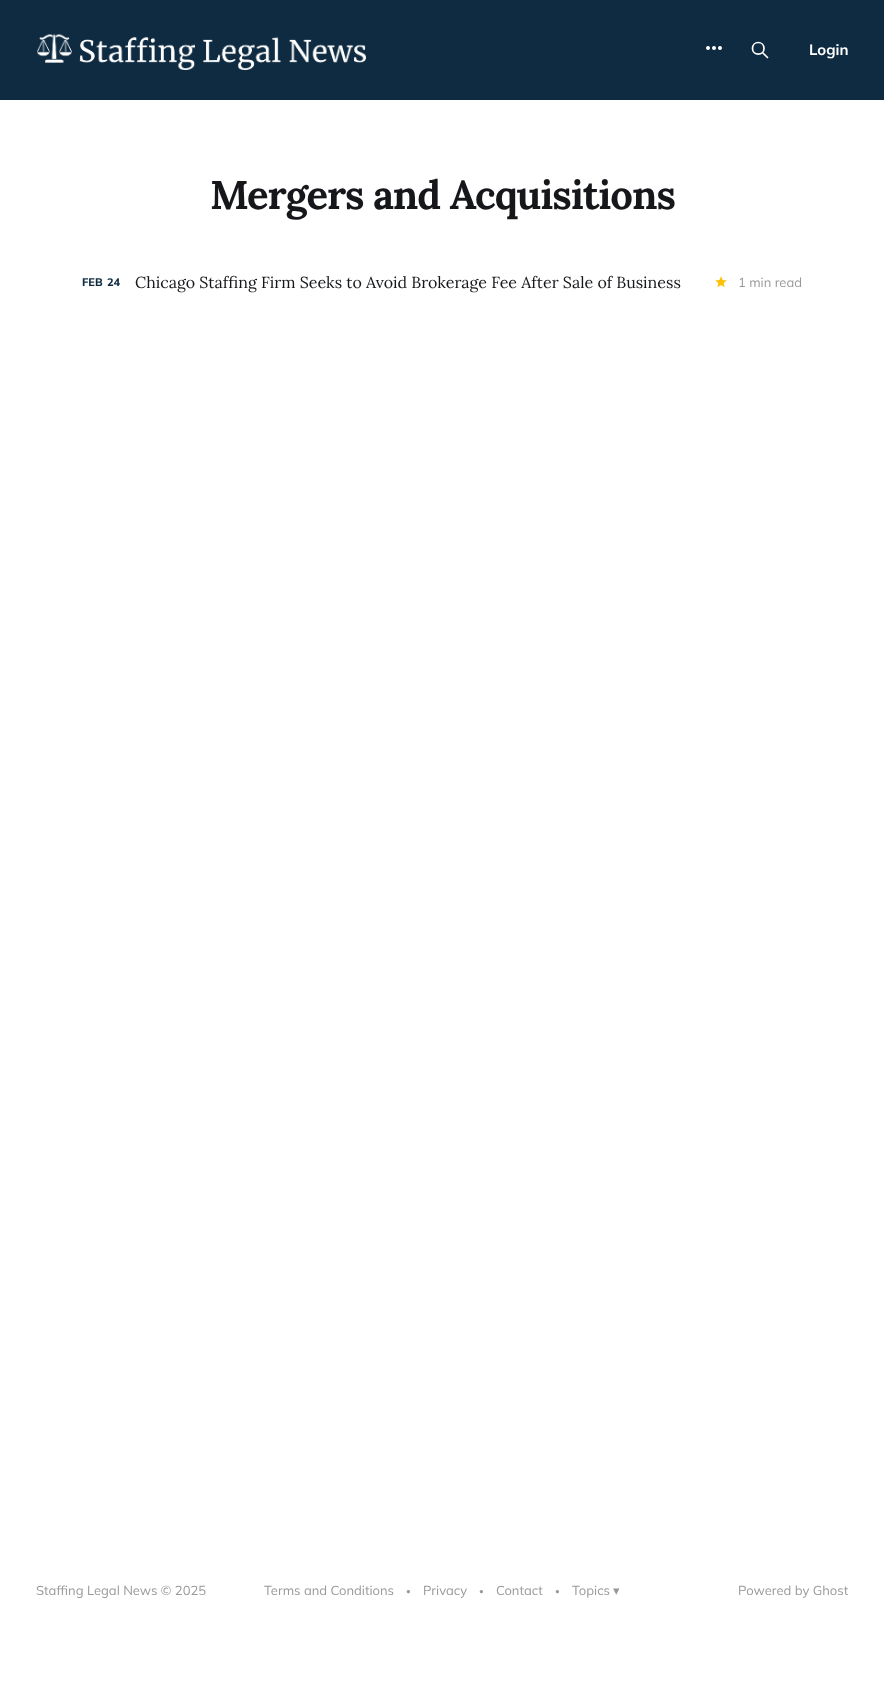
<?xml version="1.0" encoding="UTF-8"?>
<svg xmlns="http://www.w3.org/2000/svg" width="884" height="1681">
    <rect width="100%" height="100%" fill="#FFFFFF"/>
    <rect x="0" y="0" width="884" height="100" fill="#0F2B41"/>
    <image x="37" y="34" width="329" height="36" href="img_01.png"/>
    <image x="706" y="46" width="16" height="4" href="img_02.png"/>
    <path d="M 767.5 57.5 L 762.5 52.5 M 764 48.5 C 764 56 752.5 56 752.5 48.5 C 752.5 40.5 764 40.5 764 48.5 Z" fill="none" stroke="#FFFFFF" stroke-width="1.7" stroke-linecap="round" stroke-linejoin="round"/>
    <text x="809" y="55" font-family="Mulish" font-size="15" font-weight="700" fill="#FFFFFF">Login</text>
    <text x="210" y="209" font-family="Lora" font-size="40" font-weight="700" letter-spacing="-1" fill="#15171A">Mergers and Acquisitions</text>
    <text x="82" y="286" font-family="Mulish" font-size="11" font-weight="800" fill="#0F2B41">FEB</text>
    <text x="107" y="286" font-family="Mulish" font-size="11" font-weight="800" fill="#0F2B41">24</text>
    <text x="135" y="288" font-family="Lora" font-size="16" fill="#15171A">Chicago Staffing Firm Seeks to Avoid Brokerage Fee After Sale of Business</text>
    <image x="715" y="276" width="12" height="12" href="img_03.png"/>
    <text x="738" y="287" font-family="Mulish" font-size="13" fill="#999999">1 min read</text>
    <text x="36" y="1595" font-family="Mulish" font-size="13" fill="#999999">Staffing Legal News © 2025</text>
    <text x="264" y="1595" font-family="Mulish" font-size="13" fill="#999999">Terms and Conditions</text>
    <text x="406" y="1594" font-family="Mulish" font-size="9" fill="#999999">•</text>
    <text x="423" y="1595" font-family="Mulish" font-size="13" fill="#999999">Privacy</text>
    <text x="479" y="1594" font-family="Mulish" font-size="9" fill="#999999">•</text>
    <text x="496" y="1595" font-family="Mulish" font-size="13" fill="#999999">Contact</text>
    <text x="555" y="1594" font-family="Mulish" font-size="9" fill="#999999">•</text>
    <text x="572" y="1595" font-family="Mulish" font-size="13" fill="#999999">Topics</text>
    <text x="613" y="1595" font-family="DejaVu Sans" font-size="13" fill="#999999">▾</text>
    <text x="738" y="1595" font-family="Mulish" font-size="13" fill="#999999">Powered by Ghost</text>
</svg>
